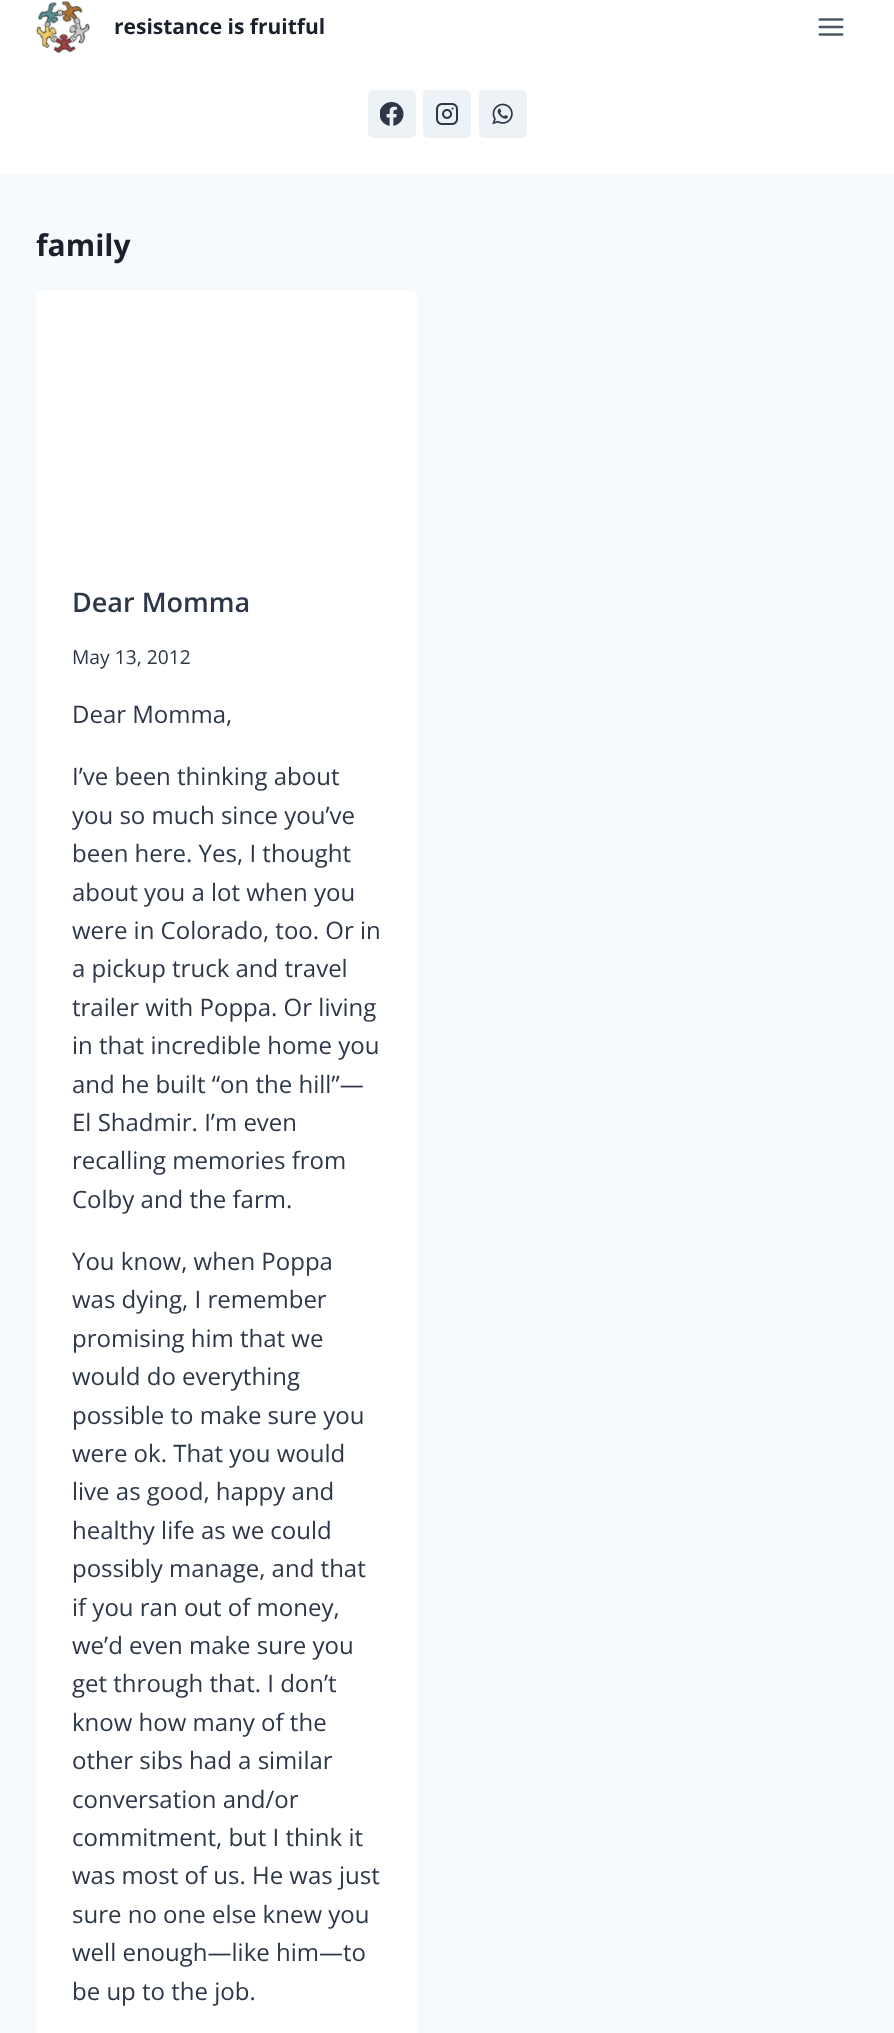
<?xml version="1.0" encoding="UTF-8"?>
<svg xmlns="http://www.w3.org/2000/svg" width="894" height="2033">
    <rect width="100%" height="100%" fill="#F7FAFC"/>
    <rect x="0" y="0" width="894" height="174" fill="#FFFFFF"/>
    <image x="36" y="1" width="54" height="52" href="img_01.png"/>
    <text x="114" y="34" font-family="Open Sans" font-size="21" font-weight="700" fill="#1A202C">resistance is fruitful</text>
    <image x="818" y="18" width="26" height="18" href="img_02.png"/>
    <rect x="368" y="90" width="48" height="48" rx="5" fill="#EDF2F7"/>
    <image x="380" y="102" width="24" height="24" href="img_03.png"/>
    <rect x="423" y="90" width="48" height="48" rx="5" fill="#EDF2F7"/>
    <image x="436" y="103" width="22" height="22" href="img_04.png"/>
    <rect x="479" y="90" width="48" height="48" rx="5" fill="#EDF2F7"/>
    <image x="492" y="103" width="21" height="22" href="img_05.png"/>
    <text x="36" y="256" font-family="Open Sans" font-size="30" font-weight="700" fill="#1A202C">family</text>
    <rect x="36" y="291" width="381" height="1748" rx="6" fill="#FFFFFF"/>
    <text x="72" y="612" font-family="Open Sans" font-size="27" font-weight="600" fill="#2D3748">Dear Momma</text>
    <text x="72" y="664" font-family="Open Sans" font-size="19.25" fill="#2D3748">May 13, 2012</text>
    <text x="72" y="723" font-family="Open Sans" font-size="24" fill="#2D3748">Dear Momma,</text>
    <text font-family="Open Sans" font-size="24" fill="#2D3748">
        <tspan x="72" y="785">I’ve been thinking about</tspan>
        <tspan x="72" y="824">you so much since you’ve</tspan>
        <tspan x="72" y="862">been here. Yes, I thought</tspan>
        <tspan x="72" y="901">about you a lot when you</tspan>
        <tspan x="72" y="939">were in Colorado, too. Or in</tspan>
        <tspan x="72" y="977">a pickup truck and travel</tspan>
        <tspan x="72" y="1016">trailer with Poppa. Or living</tspan>
        <tspan x="72" y="1054">in that incredible home you</tspan>
        <tspan x="72" y="1093">and he built “on the hill”—</tspan>
        <tspan x="72" y="1131">El Shadmir. I’m even</tspan>
        <tspan x="72" y="1169">recalling memories from</tspan>
        <tspan x="72" y="1208">Colby and the farm.</tspan>
    </text>
    <text font-family="Open Sans" font-size="24" fill="#2D3748">
        <tspan x="72" y="1270">You know, when Poppa</tspan>
        <tspan x="72" y="1308">was dying, I remember</tspan>
        <tspan x="72" y="1347">promising him that we</tspan>
        <tspan x="72" y="1385">would do everything</tspan>
        <tspan x="72" y="1424">possible to make sure you</tspan>
        <tspan x="72" y="1462">were ok. That you would</tspan>
        <tspan x="72" y="1500">live as good, happy and</tspan>
        <tspan x="72" y="1539">healthy life as we could</tspan>
        <tspan x="72" y="1577">possibly manage, and that</tspan>
        <tspan x="72" y="1616">if you ran out of money,</tspan>
        <tspan x="72" y="1654">we’d even make sure you</tspan>
        <tspan x="72" y="1692">get through that. I don’t</tspan>
        <tspan x="72" y="1731">know how many of the</tspan>
        <tspan x="72" y="1769">other sibs had a similar</tspan>
        <tspan x="72" y="1808">conversation and/or</tspan>
        <tspan x="72" y="1846">commitment, but I think it</tspan>
        <tspan x="72" y="1884">was most of us. He was just</tspan>
        <tspan x="72" y="1923">sure no one else knew you</tspan>
        <tspan x="72" y="1961">well enough—like him—to</tspan>
        <tspan x="72" y="2000">be up to the job.</tspan>
    </text>
</svg>
